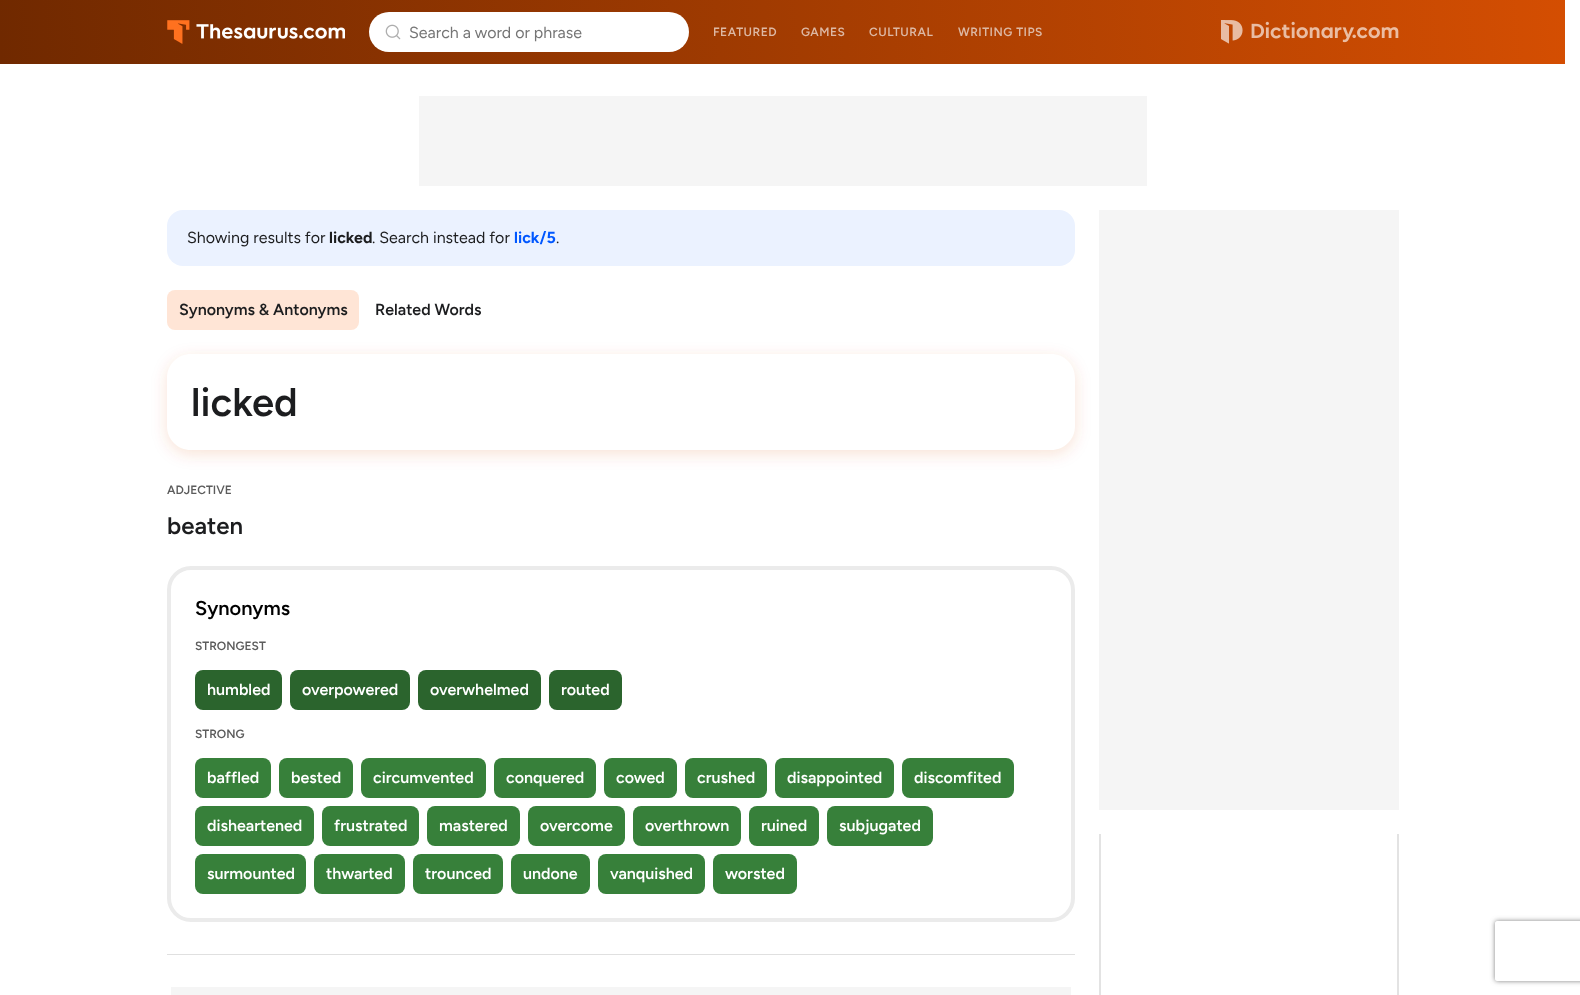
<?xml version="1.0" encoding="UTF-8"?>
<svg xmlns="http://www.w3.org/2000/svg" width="1580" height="995">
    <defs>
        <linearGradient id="g1" gradientUnits="userSpaceOnUse" x1="1.9" y1="89" x2="1563" y2="-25"><stop offset="0" stop-color="#702900"/><stop offset="1" stop-color="#D44E02"/></linearGradient>
        <clipPath id="clip1"><path d="M 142 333 H 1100 V 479 H 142 Z M 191 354 H 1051 C 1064.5 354 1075 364.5 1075 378 V 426 C 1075 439.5 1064.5 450 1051 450 H 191 C 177.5 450 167 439.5 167 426 V 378 C 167 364.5 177.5 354 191 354 Z" clip-rule="evenodd"/></clipPath>
        <filter id="blur1" x="-50%" y="-200%" width="200%" height="500%"><feGaussianBlur stdDeviation="8"/></filter>
        <clipPath id="clip2"><rect x="1099" y="834" width="300" height="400"/></clipPath>
        <clipPath id="clip3"><path d="M 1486 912 H 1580 V 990 H 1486 Z M 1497 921 H 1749 C 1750 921 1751 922 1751 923 V 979 C 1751 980 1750 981 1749 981 H 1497 C 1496 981 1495 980 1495 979 V 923 C 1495 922 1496 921 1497 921 Z" clip-rule="evenodd"/></clipPath>
        <filter id="blur2" x="-50%" y="-200%" width="200%" height="500%"><feGaussianBlur stdDeviation="2.5"/></filter>
    </defs>
    <rect width="100%" height="100%" fill="#FFFFFF"/>
    <rect x="0" y="0" width="1565" height="64" fill="url(#g1)"/>
    <image x="167" y="20" width="178" height="24" href="img_01.png"/>
    <rect x="369" y="12" width="320" height="40" rx="20" fill="#FFFFFF"/>
    <image x="385" y="24" width="16" height="16" href="img_02.png"/>
    <text x="409" y="38" font-family="Figtree" font-size="16" fill="#757575">Search a word or phrase</text>
    <text x="713" y="36" font-family="Figtree" font-size="12" font-weight="600" letter-spacing="0.5" fill="#DDB8A4">FEATURED</text>
    <text x="801" y="36" font-family="Figtree" font-size="12" font-weight="600" letter-spacing="0.5" fill="#DDB8A4">GAMES</text>
    <text x="869" y="36" font-family="Figtree" font-size="12" font-weight="600" letter-spacing="0.5" fill="#DDB8A4">CULTURAL</text>
    <text x="958" y="36" font-family="Figtree" font-size="12" font-weight="600" letter-spacing="0.5" fill="#DDB8A4">WRITING TIPS</text>
    <image x="1221" y="20" width="178" height="24" href="img_03.png"/>
    <rect x="419" y="96" width="728" height="90" fill="#F5F5F5"/>
    <rect x="167" y="210" width="908" height="56" rx="16" fill="#EBF2FF"/>
    <text x="187" y="243" font-family="Figtree" font-size="16" fill="#1C1D1F">Showing results for</text>
    <text x="329" y="243" font-family="Figtree" font-size="16" font-weight="700" fill="#1C1D1F">licked</text>
    <text x="372" y="243" font-family="Figtree" font-size="16" fill="#1C1D1F">. Search instead for</text>
    <text x="514" y="243" font-family="Figtree" font-size="16" font-weight="700" fill="#0057FF">lick/5</text>
    <text x="556" y="243" font-family="Figtree" font-size="16" fill="#1C1D1F">.</text>
    <rect x="167" y="290" width="192" height="40" rx="8" fill="#FFE5D6"/>
    <text x="179" y="315" font-family="Figtree" font-size="16" font-weight="600" fill="#1C1D1F">Synonyms &amp; Antonyms</text>
    <text x="375" y="315" font-family="Figtree" font-size="16" font-weight="600" fill="#1C1D1F">Related Words</text>
    <g clip-path="url(#clip1)">
        <rect x="167" y="358" width="908" height="96" rx="24" fill="#D44E02" fill-opacity="0.16" filter="url(#blur1)"/>
    </g>
    <text x="191" y="416" font-family="Figtree" font-size="40" font-weight="600" fill="#1C1D1F">licked</text>
    <text x="167" y="494" font-family="Figtree" font-size="12" font-weight="600" fill="#5C5C5C">ADJECTIVE</text>
    <text x="167" y="534" font-family="Figtree" font-size="24" font-weight="600" fill="#1C1D1F">beaten</text>
    <rect x="169" y="568" width="904" height="352" rx="22" fill="none" stroke="#EBEBEB" stroke-width="4"/>
    <text x="195" y="615" font-family="Figtree" font-size="20" font-weight="600" fill="#000000">Synonyms</text>
    <text x="195" y="650" font-family="Figtree" font-size="12" font-weight="600" fill="#5C5C5C">STRONGEST</text>
    <rect x="195" y="670" width="87" height="40" rx="8" fill="#2B642D"/>
    <text x="207" y="695" font-family="Figtree" font-size="16" font-weight="600" fill="#FFFFFF">humbled</text>
    <rect x="290" y="670" width="120" height="40" rx="8" fill="#2B642D"/>
    <text x="302" y="695" font-family="Figtree" font-size="16" font-weight="600" fill="#FFFFFF">overpowered</text>
    <rect x="418" y="670" width="123" height="40" rx="8" fill="#2B642D"/>
    <text x="430" y="695" font-family="Figtree" font-size="16" font-weight="600" fill="#FFFFFF">overwhelmed</text>
    <rect x="549" y="670" width="73" height="40" rx="8" fill="#2B642D"/>
    <text x="561" y="695" font-family="Figtree" font-size="16" font-weight="600" fill="#FFFFFF">routed</text>
    <text x="195" y="738" font-family="Figtree" font-size="12" font-weight="600" fill="#5C5C5C">STRONG</text>
    <rect x="195" y="758" width="76" height="40" rx="8" fill="#37803A"/>
    <text x="207" y="783" font-family="Figtree" font-size="16" font-weight="600" fill="#FFFFFF">baffled</text>
    <rect x="279" y="758" width="74" height="40" rx="8" fill="#37803A"/>
    <text x="291" y="783" font-family="Figtree" font-size="16" font-weight="600" fill="#FFFFFF">bested</text>
    <rect x="361" y="758" width="125" height="40" rx="8" fill="#37803A"/>
    <text x="373" y="783" font-family="Figtree" font-size="16" font-weight="600" fill="#FFFFFF">circumvented</text>
    <rect x="494" y="758" width="102" height="40" rx="8" fill="#37803A"/>
    <text x="506" y="783" font-family="Figtree" font-size="16" font-weight="600" fill="#FFFFFF">conquered</text>
    <rect x="604" y="758" width="73" height="40" rx="8" fill="#37803A"/>
    <text x="616" y="783" font-family="Figtree" font-size="16" font-weight="600" fill="#FFFFFF">cowed</text>
    <rect x="685" y="758" width="82" height="40" rx="8" fill="#37803A"/>
    <text x="697" y="783" font-family="Figtree" font-size="16" font-weight="600" fill="#FFFFFF">crushed</text>
    <rect x="775" y="758" width="119" height="40" rx="8" fill="#37803A"/>
    <text x="787" y="783" font-family="Figtree" font-size="16" font-weight="600" fill="#FFFFFF">disappointed</text>
    <rect x="902" y="758" width="112" height="40" rx="8" fill="#37803A"/>
    <text x="914" y="783" font-family="Figtree" font-size="16" font-weight="600" fill="#FFFFFF">discomfited</text>
    <rect x="195" y="806" width="119" height="40" rx="8" fill="#37803A"/>
    <text x="207" y="831" font-family="Figtree" font-size="16" font-weight="600" fill="#FFFFFF">disheartened</text>
    <rect x="322" y="806" width="97" height="40" rx="8" fill="#37803A"/>
    <text x="334" y="831" font-family="Figtree" font-size="16" font-weight="600" fill="#FFFFFF">frustrated</text>
    <rect x="427" y="806" width="93" height="40" rx="8" fill="#37803A"/>
    <text x="439" y="831" font-family="Figtree" font-size="16" font-weight="600" fill="#FFFFFF">mastered</text>
    <rect x="528" y="806" width="97" height="40" rx="8" fill="#37803A"/>
    <text x="540" y="831" font-family="Figtree" font-size="16" font-weight="600" fill="#FFFFFF">overcome</text>
    <rect x="633" y="806" width="108" height="40" rx="8" fill="#37803A"/>
    <text x="645" y="831" font-family="Figtree" font-size="16" font-weight="600" fill="#FFFFFF">overthrown</text>
    <rect x="749" y="806" width="70" height="40" rx="8" fill="#37803A"/>
    <text x="761" y="831" font-family="Figtree" font-size="16" font-weight="600" fill="#FFFFFF">ruined</text>
    <rect x="827" y="806" width="106" height="40" rx="8" fill="#37803A"/>
    <text x="839" y="831" font-family="Figtree" font-size="16" font-weight="600" fill="#FFFFFF">subjugated</text>
    <rect x="195" y="854" width="111" height="40" rx="8" fill="#37803A"/>
    <text x="207" y="879" font-family="Figtree" font-size="16" font-weight="600" fill="#FFFFFF">surmounted</text>
    <rect x="314" y="854" width="91" height="40" rx="8" fill="#37803A"/>
    <text x="326" y="879" font-family="Figtree" font-size="16" font-weight="600" fill="#FFFFFF">thwarted</text>
    <rect x="413" y="854" width="90" height="40" rx="8" fill="#37803A"/>
    <text x="425" y="879" font-family="Figtree" font-size="16" font-weight="600" fill="#FFFFFF">trounced</text>
    <rect x="511" y="854" width="79" height="40" rx="8" fill="#37803A"/>
    <text x="523" y="879" font-family="Figtree" font-size="16" font-weight="600" fill="#FFFFFF">undone</text>
    <rect x="598" y="854" width="107" height="40" rx="8" fill="#37803A"/>
    <text x="610" y="879" font-family="Figtree" font-size="16" font-weight="600" fill="#FFFFFF">vanquished</text>
    <rect x="713" y="854" width="84" height="40" rx="8" fill="#37803A"/>
    <text x="725" y="879" font-family="Figtree" font-size="16" font-weight="600" fill="#FFFFFF">worsted</text>
    <rect x="167" y="954" width="908" height="1" fill="#E0E0E0"/>
    <rect x="171" y="987" width="900" height="8" fill="#F5F5F5"/>
    <rect x="1099" y="210" width="300" height="600" fill="#F5F5F5"/>
    <g clip-path="url(#clip2)">
        <rect x="1100" y="735" width="298" height="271" rx="9" fill="none" stroke="#E3E3E3" stroke-width="2"/>
    </g>
    <g clip-path="url(#clip3)">
        <rect x="1495" y="921" width="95" height="60" rx="2" fill="#808080" filter="url(#blur2)"/>
    </g>
</svg>
